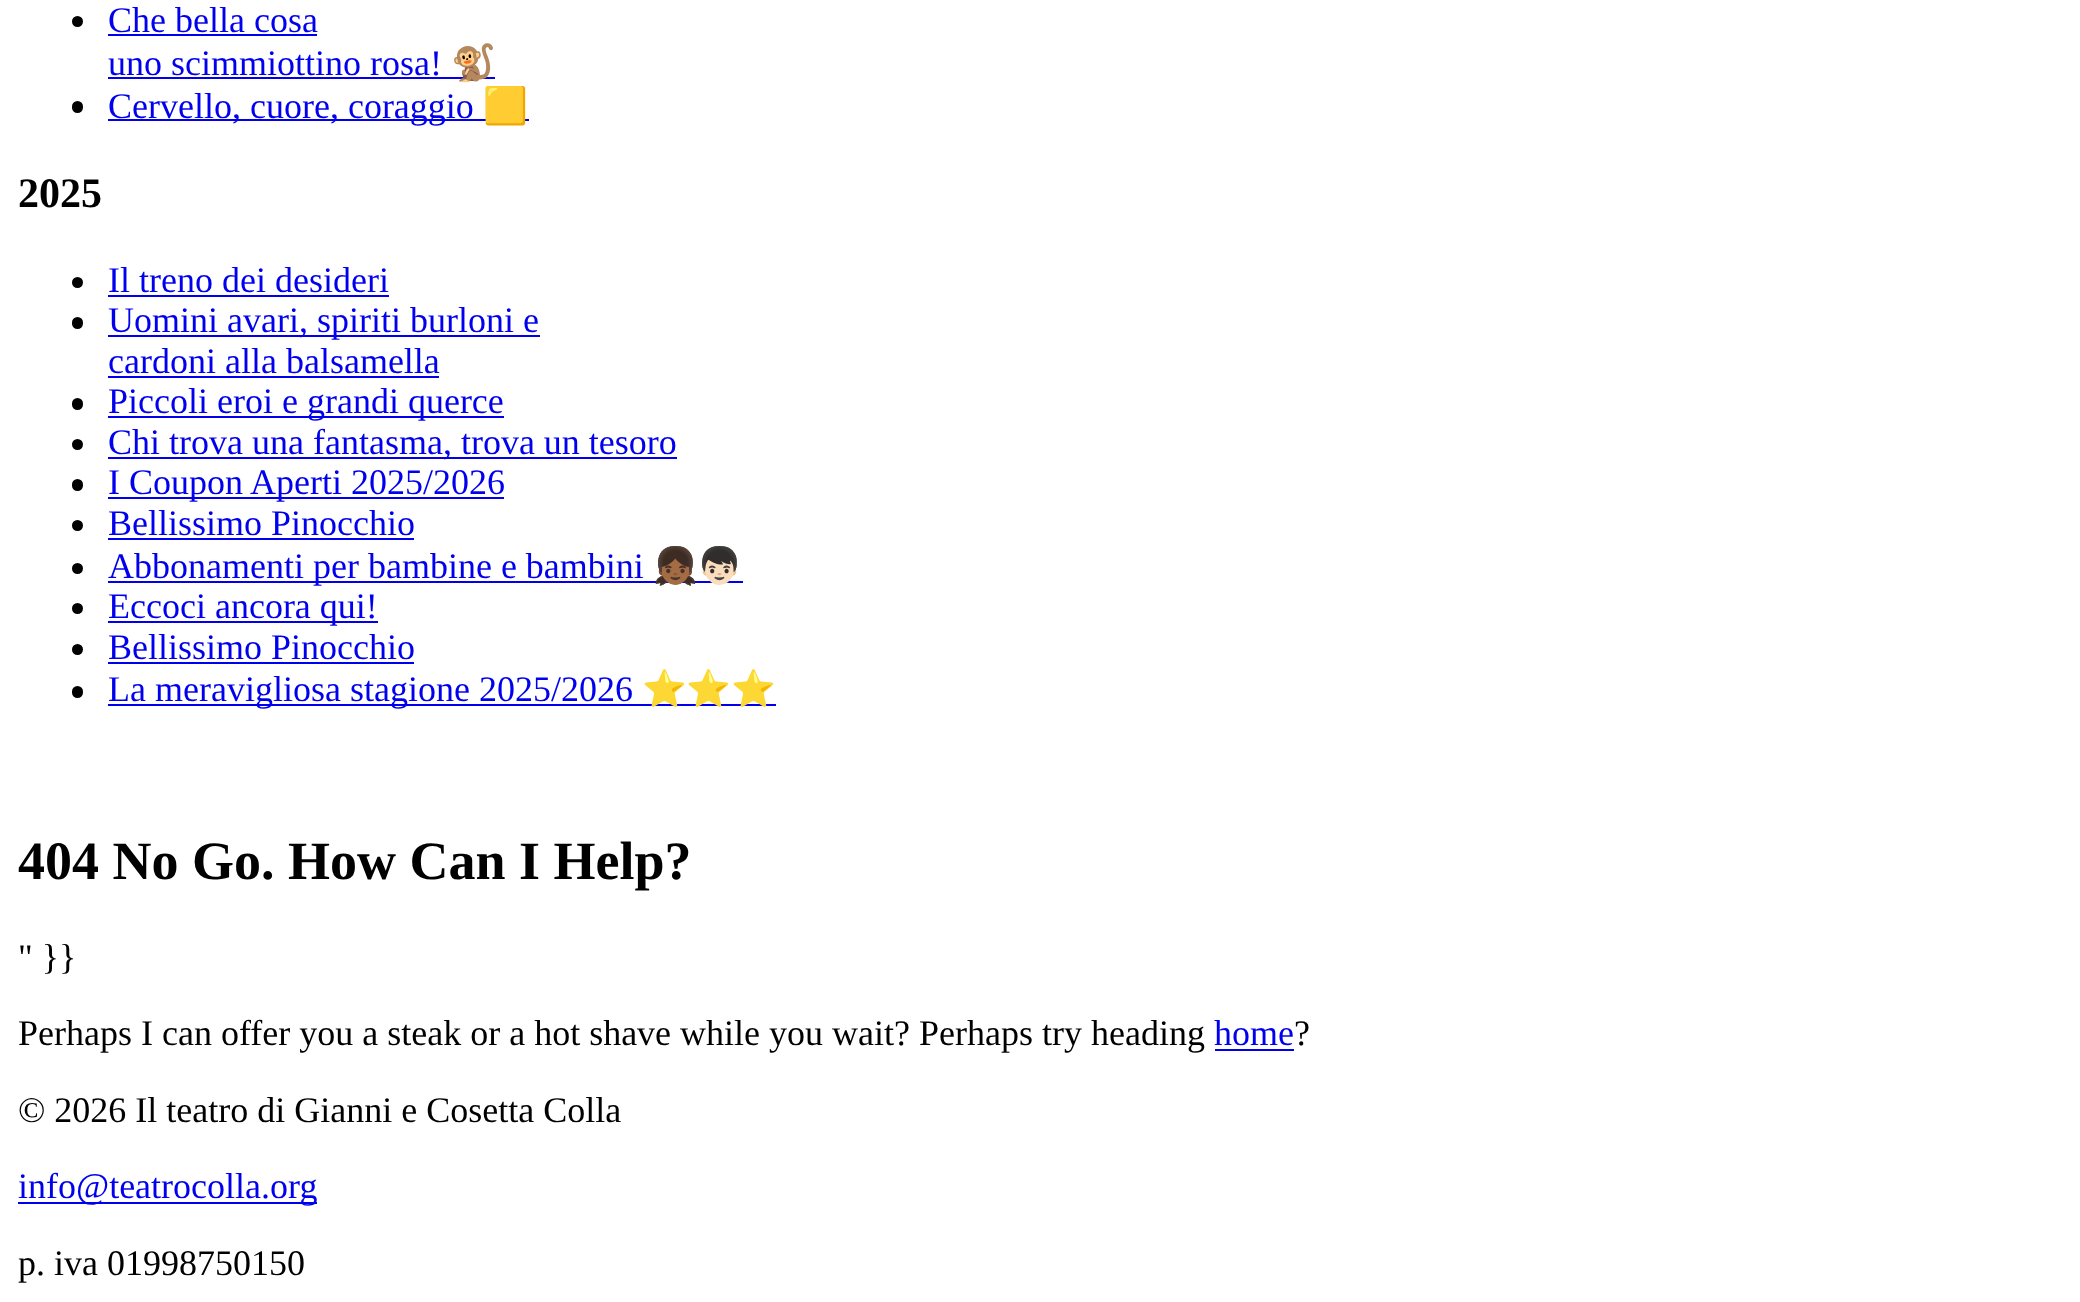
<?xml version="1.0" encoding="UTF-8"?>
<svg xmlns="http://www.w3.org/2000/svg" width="2080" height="1302">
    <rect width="100%" height="100%" fill="#FFFFFF"/>
    <circle cx="77.5" cy="21.5" r="5.5" fill="#000000"/>
    <text x="108" y="32" font-family="Liberation Serif" font-size="36" fill="#0000EE">Che bella cosa</text>
    <rect x="108" y="34" width="209" height="2" fill="#0000EE"/>
    <text x="108" y="75" font-family="Liberation Serif" font-size="36" fill="#0000EE">uno scimmiottino rosa!</text>
    <rect x="108" y="77" width="387" height="2" fill="#0000EE"/>
    <text x="451" y="75" font-family="Noto Color Emoji" font-size="36" fill="#0000EE">🐒</text>
    <rect x="72" y="101" width="11" height="12" rx="5.5" fill="#000000"/>
    <rect x="108" y="119" width="421" height="2" fill="#0000EE"/>
    <text x="108" y="118" font-family="Liberation Serif" font-size="36" fill="#0000EE">Cervello, cuore, coraggio</text>
    <text x="483" y="118" font-family="Noto Color Emoji" font-size="36" fill="#0000EE">🟨</text>
    <text x="18" y="207" font-family="Liberation Serif" font-size="42" font-weight="700" fill="#000000">2025</text>
    <circle cx="77.5" cy="282.5" r="5.5" fill="#000000"/>
    <text x="108" y="292" font-family="Liberation Serif" font-size="36" fill="#0000EE">Il treno dei desideri</text>
    <rect x="108" y="295" width="281" height="2" fill="#0000EE"/>
    <rect x="72" y="317" width="11" height="12" rx="5.5" fill="#000000"/>
    <rect x="108" y="335" width="432" height="2" fill="#0000EE"/>
    <text font-family="Liberation Serif" font-size="36" fill="#0000EE">
        <tspan x="108" y="332">Uomini avari, spiriti burloni e</tspan>
        <tspan x="108" y="373">cardoni alla balsamella</tspan>
    </text>
    <rect x="108" y="376" width="331" height="2" fill="#0000EE"/>
    <rect x="72" y="398" width="11" height="12" rx="5.5" fill="#000000"/>
    <rect x="108" y="416" width="396" height="2" fill="#0000EE"/>
    <text x="108" y="413" font-family="Liberation Serif" font-size="36" fill="#0000EE">Piccoli eroi e grandi querce</text>
    <circle cx="77.5" cy="444.5" r="5.5" fill="#000000"/>
    <rect x="108" y="457" width="569" height="2" fill="#0000EE"/>
    <text x="108" y="454" font-family="Liberation Serif" font-size="36" fill="#0000EE">Chi trova una fantasma, trova un tesoro</text>
    <rect x="72" y="479" width="11" height="12" rx="5.5" fill="#000000"/>
    <rect x="108" y="497" width="396" height="2" fill="#0000EE"/>
    <text x="108" y="494" font-family="Liberation Serif" font-size="36" fill="#0000EE">I Coupon Aperti 2025/2026</text>
    <circle cx="77.5" cy="525.5" r="5.5" fill="#000000"/>
    <text x="108" y="535" font-family="Liberation Serif" font-size="36" fill="#0000EE">Bellissimo Pinocchio</text>
    <rect x="108" y="538" width="306" height="2" fill="#0000EE"/>
    <circle cx="77.5" cy="568.5" r="5.5" fill="#000000"/>
    <rect x="108" y="581" width="635" height="2" fill="#0000EE"/>
    <text x="108" y="578" font-family="Liberation Serif" font-size="36" fill="#0000EE">Abbonamenti per bambine e bambini</text>
    <text x="653" y="578" font-family="Noto Color Emoji" font-size="36" fill="#0000EE">👧🏾👦🏻</text>
    <circle cx="77.5" cy="608.5" r="5.5" fill="#000000"/>
    <rect x="108" y="621" width="270" height="2" fill="#0000EE"/>
    <text x="108" y="618" font-family="Liberation Serif" font-size="36" fill="#0000EE">Eccoci ancora qui!</text>
    <circle cx="77.5" cy="649.5" r="5.5" fill="#000000"/>
    <text x="108" y="659" font-family="Liberation Serif" font-size="36" fill="#0000EE">Bellissimo Pinocchio</text>
    <rect x="108" y="662" width="306" height="2" fill="#0000EE"/>
    <rect x="72" y="686" width="11" height="12" rx="5.5" fill="#000000"/>
    <rect x="108" y="704" width="668" height="2" fill="#0000EE"/>
    <text x="108" y="701" font-family="Liberation Serif" font-size="36" fill="#0000EE">La meravigliosa stagione 2025/2026</text>
    <text x="642" y="701" font-family="Noto Color Emoji" font-size="36" fill="#0000EE">⭐️⭐️⭐️</text>
    <text x="18" y="879" font-family="Liberation Serif" font-size="54" font-weight="700" fill="#000000">404 No Go. How Can I Help?</text>
    <text x="18" y="969" font-family="Liberation Serif" font-size="36" fill="#000000">" }}</text>
    <text x="18" y="1045" font-family="Liberation Serif" font-size="36" fill="#000000">Perhaps I can offer you a steak or a hot shave while you wait? Perhaps try heading</text>
    <text x="1214" y="1045" font-family="Liberation Serif" font-size="36" fill="#0000EE">home</text>
    <rect x="1215" y="1049" width="79" height="2" fill="#0000EE"/>
    <text x="1294" y="1045" font-family="Liberation Serif" font-size="36" fill="#000000">?</text>
    <text x="18" y="1122" font-family="Liberation Serif" font-size="36" fill="#000000">© 2026 Il teatro di Gianni e Cosetta Colla</text>
    <rect x="18" y="1202" width="299" height="2" fill="#0000EE"/>
    <text x="18" y="1198" font-family="Liberation Serif" font-size="36" fill="#0000EE">info@teatrocolla.org</text>
    <text x="18" y="1275" font-family="Liberation Serif" font-size="36" fill="#000000">p. iva 01998750150</text>
</svg>
